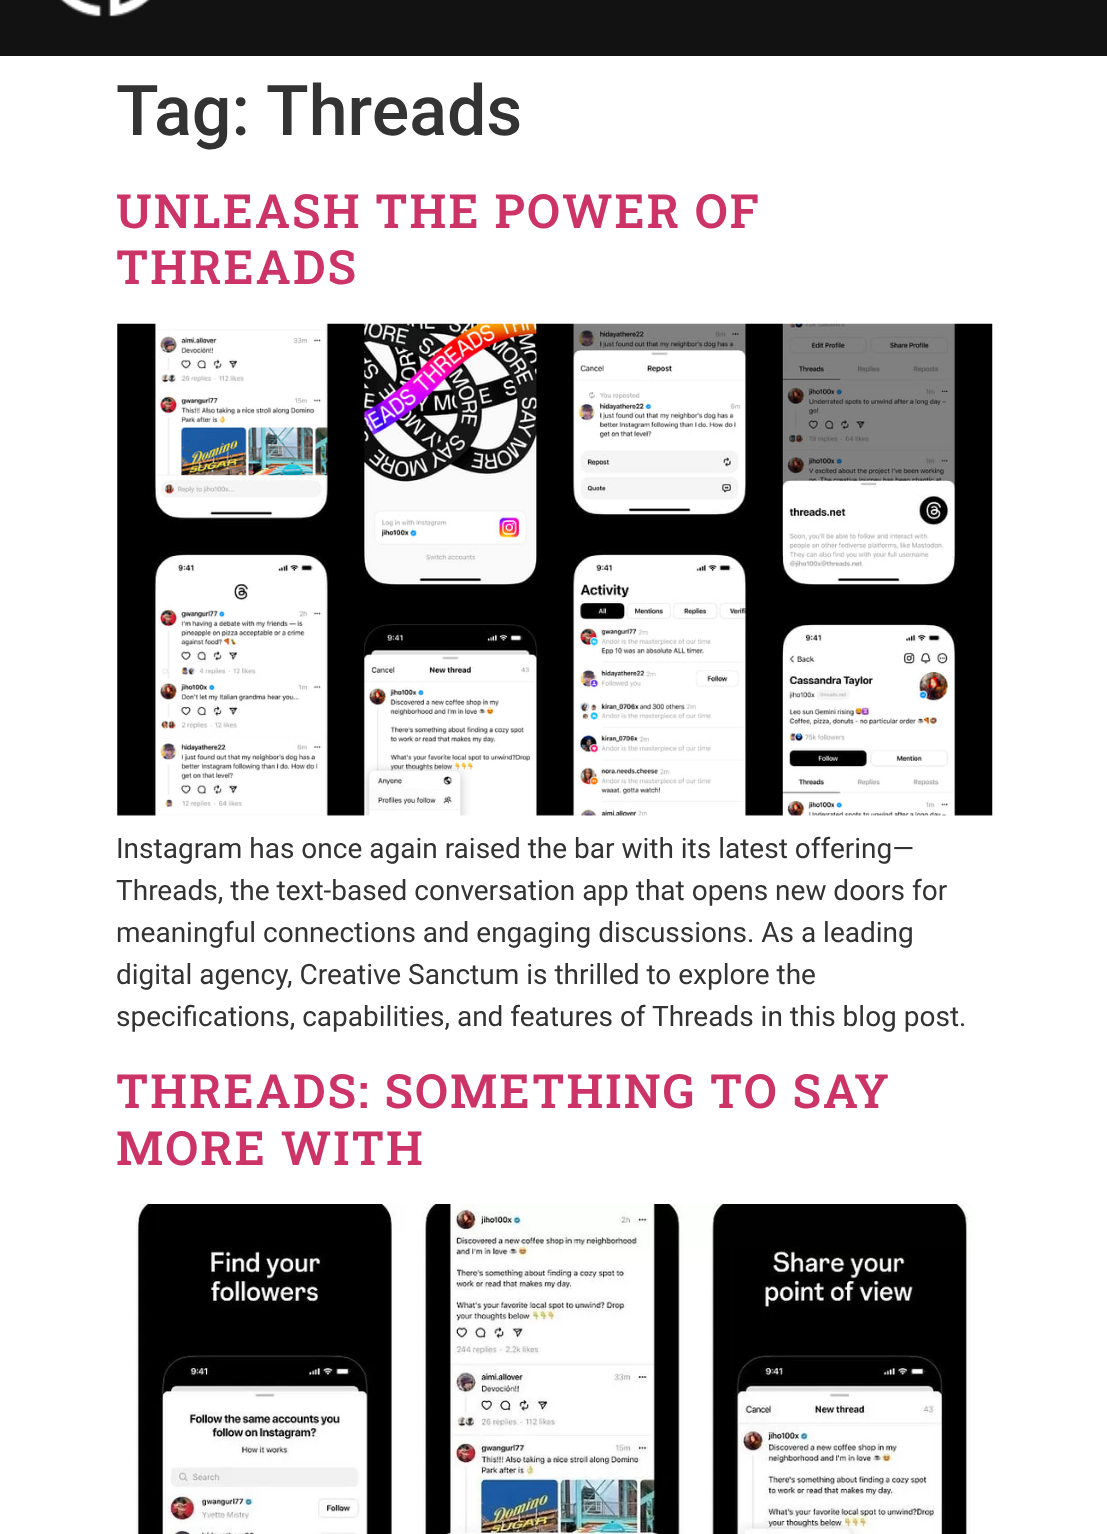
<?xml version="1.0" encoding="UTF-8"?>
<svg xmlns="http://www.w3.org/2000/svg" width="1107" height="1534">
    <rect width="100%" height="100%" fill="#FFFFFF"/>
    <rect x="0" y="0" width="1107" height="56" fill="#121212"/>
    <image x="59" y="0" width="92" height="17" href="img_01.png"/>
    <text x="116" y="135" font-family="Roboto" font-size="70" font-weight="500" fill="#333333">Tag:</text>
    <text x="266" y="135" font-family="Roboto" font-size="70" font-weight="500" fill="#333333">Threads</text>
    <text font-family="Roboto Slab" font-size="47.25" font-weight="600" letter-spacing="2.1" fill="#CC3366">
        <tspan x="116" y="228">UNLEASH THE POWER OF</tspan>
        <tspan x="116" y="284">THREADS</tspan>
    </text>
    <image x="117" y="323" width="876" height="493" href="img_02.png"/>
    <text font-family="Roboto" font-size="28" fill="#333333">
        <tspan x="116" y="858">Instagram has once again raised the bar with its latest offering—</tspan>
        <tspan x="116" y="900">Threads, the text-based conversation app that opens new doors for</tspan>
        <tspan x="116" y="942">meaningful connections and engaging discussions. As a leading</tspan>
        <tspan x="116" y="984">digital agency, Creative Sanctum is thrilled to explore the</tspan>
        <tspan x="116" y="1026">specifications, capabilities, and features of Threads in this blog post.</tspan>
    </text>
    <text font-family="Roboto Slab" font-size="47.25" font-weight="600" letter-spacing="2.1" fill="#CC3366">
        <tspan x="116" y="1108">THREADS: SOMETHING TO SAY</tspan>
        <tspan x="116" y="1165">MORE WITH</tspan>
    </text>
    <image x="135" y="1204" width="836" height="330" href="img_03.png"/>
</svg>
